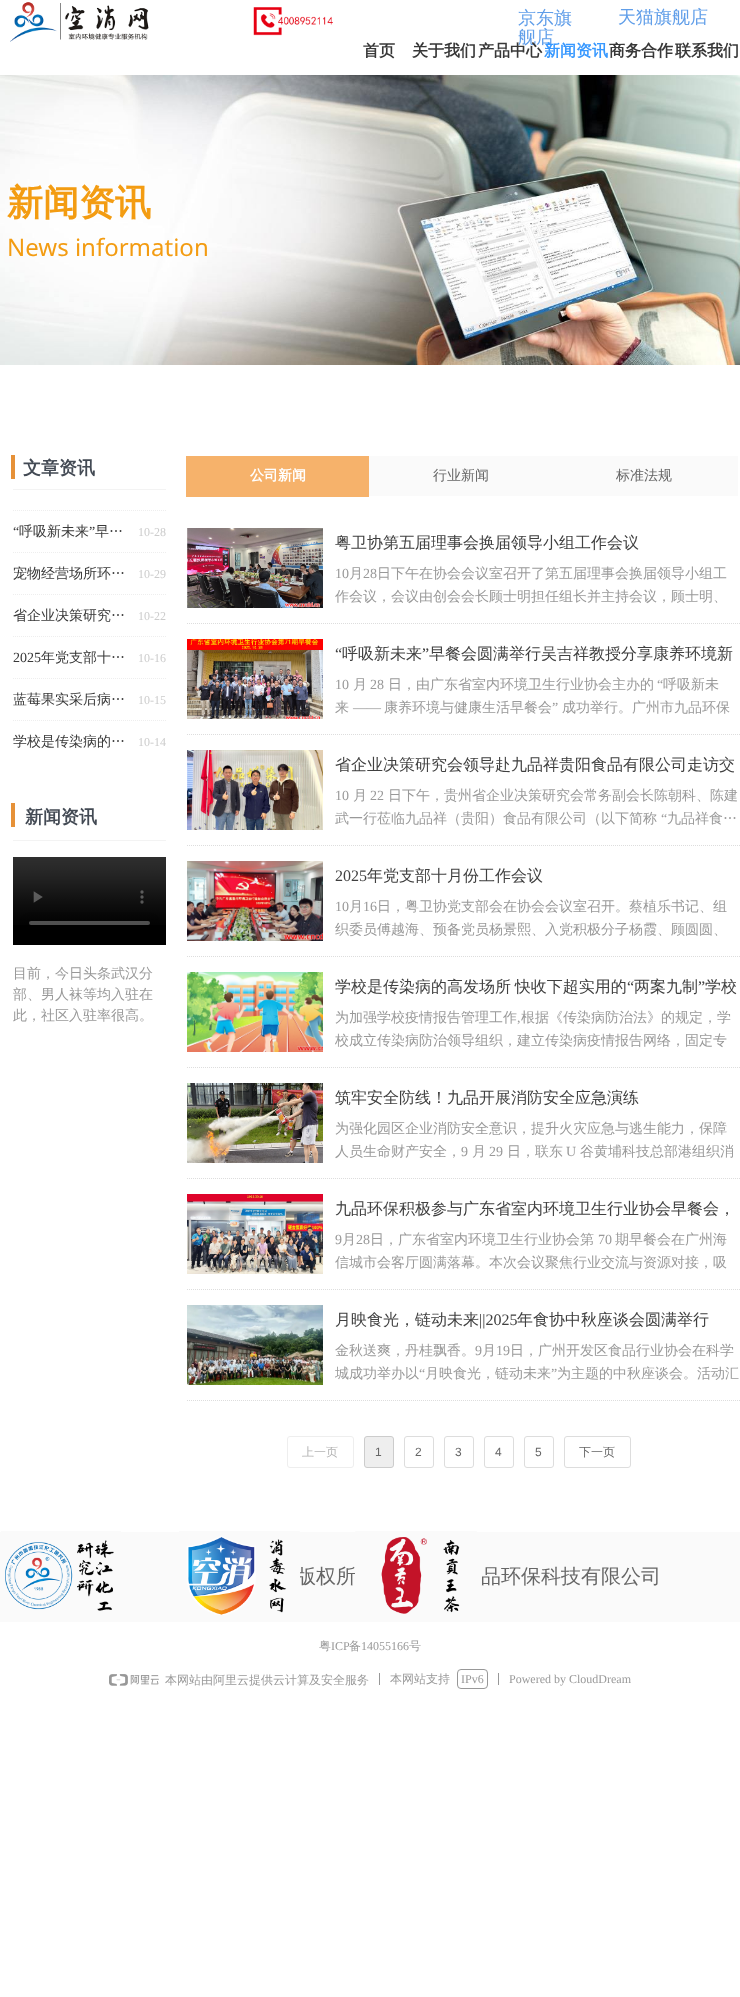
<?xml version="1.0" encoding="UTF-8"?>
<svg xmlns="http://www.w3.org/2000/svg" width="740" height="1997">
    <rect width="100%" height="100%" fill="#FFFFFF"/>
    <image x="10" y="2" width="323" height="40" href="img_01.png"/>
    <text font-family="WenQuanYi Zen Hei" font-size="18" font-weight="500" fill="#609EE9">
        <tspan x="518" y="24">京东旗</tspan>
        <tspan x="518" y="43">舰店</tspan>
    </text>
    <text x="618" y="23" font-family="WenQuanYi Zen Hei" font-size="18" font-weight="500" fill="#609EE9">天猫旗舰店</text>
    <text x="363" y="56" font-family="WenQuanYi Zen Hei" font-size="16" font-weight="700" fill="#383838">首页</text>
    <text x="412" y="56" font-family="WenQuanYi Zen Hei" font-size="16" font-weight="700" fill="#383838">关于我们</text>
    <text x="478" y="56" font-family="WenQuanYi Zen Hei" font-size="16" font-weight="700" fill="#383838">产品中心</text>
    <text x="544" y="56" font-family="WenQuanYi Zen Hei" font-size="16" font-weight="700" fill="#3798FF">新闻资讯</text>
    <text x="609" y="56" font-family="WenQuanYi Zen Hei" font-size="16" font-weight="700" fill="#383838">商务合作</text>
    <text x="675" y="56" font-family="WenQuanYi Zen Hei" font-size="16" font-weight="700" fill="#383838">联系我们</text>
    <image x="0" y="75" width="740" height="290" href="img_02.png"/>
    <text x="7" y="215" font-family="WenQuanYi Zen Hei" font-size="36" font-weight="700" fill="#F39C12">新闻资讯</text>
    <text x="7" y="256" font-family="Noto Sans" font-size="24" fill="#F39C12">News information</text>
    <rect x="11" y="455" width="4" height="24" fill="#E69138"/>
    <text x="23" y="474" font-family="WenQuanYi Zen Hei" font-size="18" font-weight="700" fill="#434A54">文章资讯</text>
    <rect x="13" y="489" width="153" height="1" fill="#F3F3F3"/>
    <path d="M 13 510.5 H 166" fill="none" stroke="#EEEEEE" stroke-dasharray="1 1"/>
    <path d="M 13 552.5 H 166" fill="none" stroke="#EEEEEE" stroke-dasharray="1 1"/>
    <text x="13" y="536" font-family="Liberation Serif" font-size="14" fill="#383838">“</text>
    <text x="19" y="536" font-family="WenQuanYi Zen Hei" font-size="14" font-weight="500" fill="#383838">呼吸新未来</text>
    <text x="89" y="536" font-family="Liberation Serif" font-size="14" fill="#383838">”</text>
    <text x="95" y="536" font-family="WenQuanYi Zen Hei" font-size="14" font-weight="500" fill="#383838">早…</text>
    <text x="138" y="536" font-family="Liberation Serif" font-size="12" fill="#CCCCCC">10-28</text>
    <path d="M 13 594.5 H 166" fill="none" stroke="#EEEEEE" stroke-dasharray="1 1"/>
    <text x="13" y="578" font-family="WenQuanYi Zen Hei" font-size="14" font-weight="500" fill="#383838">宠物经营场所环…</text>
    <text x="138" y="578" font-family="Liberation Serif" font-size="12" fill="#CCCCCC">10-29</text>
    <path d="M 13 636.5 H 166" fill="none" stroke="#EEEEEE" stroke-dasharray="1 1"/>
    <text x="13" y="620" word-spacing="-1" font-family="WenQuanYi Zen Hei" font-size="14" font-weight="500" fill="#383838">省企业决策研究…</text>
    <text x="138" y="620" font-family="Liberation Serif" font-size="12" fill="#CCCCCC">10-22</text>
    <path d="M 13 678.5 H 166" fill="none" stroke="#EEEEEE" stroke-dasharray="1 1"/>
    <text x="13" y="662" font-family="Liberation Serif" font-size="14" fill="#383838">2025</text>
    <text x="41" y="662" font-family="WenQuanYi Zen Hei" font-size="14" font-weight="500" fill="#383838">年党支部十…</text>
    <text x="138" y="662" font-family="Liberation Serif" font-size="12" fill="#CCCCCC">10-16</text>
    <path d="M 13 720.5 H 166" fill="none" stroke="#EEEEEE" stroke-dasharray="1 1"/>
    <text x="13" y="704" font-family="WenQuanYi Zen Hei" font-size="14" font-weight="500" fill="#383838">蓝莓果实采后病…</text>
    <text x="138" y="704" font-family="Liberation Serif" font-size="12" fill="#CCCCCC">10-15</text>
    <text x="13" y="746" word-spacing="-1" font-family="WenQuanYi Zen Hei" font-size="14" font-weight="500" fill="#383838">学校是传染病的…</text>
    <text x="138" y="746" font-family="Liberation Serif" font-size="12" fill="#CCCCCC">10-14</text>
    <rect x="11" y="803" width="4" height="24" fill="#E69138"/>
    <text x="25" y="823" font-family="WenQuanYi Zen Hei" font-size="18" font-weight="700" fill="#434A54">新闻资讯</text>
    <rect x="13" y="840" width="153" height="1" fill="#F3F3F3"/>
    <rect x="13" y="925" width="153" height="20" fill="#000000"/>
    <image x="13" y="857" width="153" height="68" href="img_03.png"/>
    <text font-family="WenQuanYi Zen Hei" font-size="14" font-weight="500" fill="#999999">
        <tspan x="13" y="978">目前，今日头条武汉分</tspan>
        <tspan x="13" y="999">部、男人袜等均入驻在</tspan>
        <tspan x="13" y="1020">此，社区入驻率很高。</tspan>
    </text>
    <rect x="369" y="456" width="369" height="40" fill="#FAFAFA"/>
    <rect x="186" y="456" width="183" height="41" fill="#F6B26B"/>
    <text x="250" y="480" font-family="WenQuanYi Zen Hei" font-size="14" font-weight="700" fill="#FFFFFF">公司新闻</text>
    <text x="433" y="480" font-family="WenQuanYi Zen Hei" font-size="14" font-weight="500" fill="#666666">行业新闻</text>
    <text x="616" y="480" font-family="WenQuanYi Zen Hei" font-size="14" font-weight="500" fill="#666666">标准法规</text>
    <path d="M 187 623.5 H 740" fill="none" stroke="#DDDDDD" stroke-dasharray="1 1"/>
    <image x="187" y="528" width="136" height="80" href="img_04.png"/>
    <text x="335" y="548" font-family="WenQuanYi Zen Hei" font-size="16" font-weight="500" fill="#404040">粤卫协第五届理事会换届领导小组工作会议</text>
    <text x="335" y="578" font-family="Liberation Serif" font-size="14" fill="#999999">10</text>
    <text x="349" y="578" font-family="WenQuanYi Zen Hei" font-size="14" font-weight="500" fill="#999999">月</text>
    <text x="363" y="578" font-family="Liberation Serif" font-size="14" fill="#999999">28</text>
    <text x="377" y="578" font-family="WenQuanYi Zen Hei" font-size="14" font-weight="500" fill="#999999">日下午在协会会议室召开了第五届理事会换届领导小组工</text>
    <text x="335" y="601" font-family="WenQuanYi Zen Hei" font-size="14" font-weight="500" fill="#999999">作会议，会议由创会会长顾士明担任组长并主持会议，顾士明、</text>
    <path d="M 187 734.5 H 740" fill="none" stroke="#DDDDDD" stroke-dasharray="1 1"/>
    <image x="187" y="639" width="136" height="80" href="img_05.png"/>
    <text x="335" y="659" font-family="Liberation Serif" font-size="16" fill="#404040">“</text>
    <text x="342" y="659" font-family="WenQuanYi Zen Hei" font-size="16" font-weight="500" fill="#404040">呼吸新未来</text>
    <text x="422" y="659" font-family="Liberation Serif" font-size="16" fill="#404040">”</text>
    <text x="429" y="659" font-family="WenQuanYi Zen Hei" font-size="16" font-weight="500" fill="#404040">早餐会圆满举行吴吉祥教授分享康养环境新</text>
    <text x="335" y="689" font-family="Liberation Serif" font-size="14" fill="#999999">10</text>
    <text x="353" y="689" font-family="WenQuanYi Zen Hei" font-size="14" font-weight="500" fill="#999999">月</text>
    <text x="370" y="689" font-family="Liberation Serif" font-size="14" fill="#999999">28</text>
    <text x="388" y="689" font-family="WenQuanYi Zen Hei" font-size="14" font-weight="500" fill="#999999">日，由广东省室内环境卫生行业协会主办的</text>
    <text x="657" y="689" font-family="Liberation Serif" font-size="14" fill="#999999">“</text>
    <text x="663" y="689" font-family="WenQuanYi Zen Hei" font-size="14" font-weight="500" fill="#999999">呼吸新未</text>
    <text x="335" y="712" font-family="WenQuanYi Zen Hei" font-size="14" font-weight="500" fill="#999999">来</text>
    <text x="384" y="712" font-family="WenQuanYi Zen Hei" font-size="14" font-weight="500" fill="#999999">康养环境与健康生活早餐会</text>
    <text x="552" y="712" font-family="Liberation Serif" font-size="14" fill="#999999">”</text>
    <text x="562" y="712" font-family="WenQuanYi Zen Hei" font-size="14" font-weight="500" fill="#999999">成功举行。广州市九品环保</text>
    <text x="353" y="712" font-family="Liberation Serif" font-size="14" fill="#999999">——</text>
    <path d="M 187 845.5 H 740" fill="none" stroke="#DDDDDD" stroke-dasharray="1 1"/>
    <image x="187" y="750" width="136" height="80" href="img_06.png"/>
    <text x="335" y="770" font-family="WenQuanYi Zen Hei" font-size="16" font-weight="500" fill="#404040">省企业决策研究会领导赴九品祥贵阳食品有限公司走访交</text>
    <text x="335" y="800" font-family="Liberation Serif" font-size="14" fill="#999999">10</text>
    <text x="353" y="800" font-family="WenQuanYi Zen Hei" font-size="14" font-weight="500" fill="#999999">月</text>
    <text x="370" y="800" font-family="Liberation Serif" font-size="14" fill="#999999">22</text>
    <text x="388" y="800" font-family="WenQuanYi Zen Hei" font-size="14" font-weight="500" fill="#999999">日下午，贵州省企业决策研究会常务副会长陈朝科、陈建</text>
    <text x="335" y="823" font-family="WenQuanYi Zen Hei" font-size="14" font-weight="500" fill="#999999">武一行莅临九品祥（贵阳）食品有限公司（以下简称</text>
    <text x="661" y="823" font-family="Liberation Serif" font-size="14" fill="#999999">“</text>
    <text x="667" y="823" font-family="WenQuanYi Zen Hei" font-size="14" font-weight="500" fill="#999999">九品祥食…</text>
    <path d="M 187 956.5 H 740" fill="none" stroke="#DDDDDD" stroke-dasharray="1 1"/>
    <image x="187" y="861" width="136" height="80" href="img_07.png"/>
    <text x="335" y="881" font-family="Liberation Serif" font-size="16" fill="#404040">2025</text>
    <text x="367" y="881" font-family="WenQuanYi Zen Hei" font-size="16" font-weight="500" fill="#404040">年党支部十月份工作会议</text>
    <text x="335" y="911" font-family="Liberation Serif" font-size="14" fill="#999999">10</text>
    <text x="349" y="911" font-family="WenQuanYi Zen Hei" font-size="14" font-weight="500" fill="#999999">月</text>
    <text x="363" y="911" font-family="Liberation Serif" font-size="14" fill="#999999">16</text>
    <text x="377" y="911" font-family="WenQuanYi Zen Hei" font-size="14" font-weight="500" fill="#999999">日，粤卫协党支部会在协会会议室召开。蔡植乐书记、组</text>
    <text x="335" y="934" font-family="WenQuanYi Zen Hei" font-size="14" font-weight="500" fill="#999999">织委员傅越海、预备党员杨景熙、入党积极分子杨霞、顾圆圆、</text>
    <path d="M 187 1067.5 H 740" fill="none" stroke="#DDDDDD" stroke-dasharray="1 1"/>
    <image x="187" y="972" width="136" height="80" href="img_08.png"/>
    <text x="335" y="992" word-spacing="-1" font-family="WenQuanYi Zen Hei" font-size="16" font-weight="500" fill="#404040">学校是传染病的高发场所 快收下超实用的</text>
    <text x="627" y="992" font-family="Liberation Serif" font-size="16" fill="#404040">“</text>
    <text x="634" y="992" font-family="WenQuanYi Zen Hei" font-size="16" font-weight="500" fill="#404040">两案九制</text>
    <text x="698" y="992" font-family="Liberation Serif" font-size="16" fill="#404040">”</text>
    <text x="705" y="992" font-family="WenQuanYi Zen Hei" font-size="16" font-weight="500" fill="#404040">学校</text>
    <text x="335" y="1022" font-family="WenQuanYi Zen Hei" font-size="14" font-weight="500" fill="#999999">为加强学校疫情报告管理工作</text>
    <text x="517" y="1022" font-family="Liberation Serif" font-size="14" fill="#999999">,</text>
    <text x="521" y="1022" font-family="WenQuanYi Zen Hei" font-size="14" font-weight="500" fill="#999999">根据《传染病防治法》的规定，学</text>
    <text x="335" y="1045" font-family="WenQuanYi Zen Hei" font-size="14" font-weight="500" fill="#999999">校成立传染病防治领导组织，建立传染病疫情报告网络，固定专</text>
    <path d="M 187 1178.5 H 740" fill="none" stroke="#DDDDDD" stroke-dasharray="1 1"/>
    <image x="187" y="1083" width="136" height="80" href="img_09.png"/>
    <text x="335" y="1103" font-family="WenQuanYi Zen Hei" font-size="16" font-weight="500" fill="#404040">筑牢安全防线！九品开展消防安全应急演练</text>
    <text font-family="WenQuanYi Zen Hei" font-size="14" font-weight="500" fill="#999999">
        <tspan x="335" y="1133">为强化园区企业消防安全意识，提升火灾应急与逃生能力，保障</tspan>
        <tspan x="335" y="1156">人员生命财产安全，</tspan>
    </text>
    <text x="461" y="1156" font-family="Liberation Serif" font-size="14" fill="#999999">9</text>
    <text x="472" y="1156" font-family="WenQuanYi Zen Hei" font-size="14" font-weight="500" fill="#999999">月</text>
    <text x="489" y="1156" font-family="Liberation Serif" font-size="14" fill="#999999">29</text>
    <text x="507" y="1156" font-family="WenQuanYi Zen Hei" font-size="14" font-weight="500" fill="#999999">日，联东</text>
    <text x="566" y="1156" font-family="Liberation Serif" font-size="14" fill="#999999">U</text>
    <text x="580" y="1156" font-family="WenQuanYi Zen Hei" font-size="14" font-weight="500" fill="#999999">谷黄埔科技总部港组织消</text>
    <path d="M 187 1289.5 H 740" fill="none" stroke="#DDDDDD" stroke-dasharray="1 1"/>
    <image x="187" y="1194" width="136" height="80" href="img_10.png"/>
    <text x="335" y="1214" font-family="WenQuanYi Zen Hei" font-size="16" font-weight="500" fill="#404040">九品环保积极参与广东省室内环境卫生行业协会早餐会，</text>
    <text x="335" y="1244" font-family="Liberation Serif" font-size="14" fill="#999999">9</text>
    <text x="342" y="1244" font-family="WenQuanYi Zen Hei" font-size="14" font-weight="500" fill="#999999">月</text>
    <text x="356" y="1244" font-family="Liberation Serif" font-size="14" fill="#999999">28</text>
    <text x="370" y="1244" font-family="WenQuanYi Zen Hei" font-size="14" font-weight="500" fill="#999999">日，广东省室内环境卫生行业协会第</text>
    <text x="598" y="1244" font-family="Liberation Serif" font-size="14" fill="#999999">70</text>
    <text x="615" y="1244" font-family="WenQuanYi Zen Hei" font-size="14" font-weight="500" fill="#999999">期早餐会在广州海</text>
    <text x="335" y="1267" font-family="WenQuanYi Zen Hei" font-size="14" font-weight="500" fill="#999999">信城市会客厅圆满落幕。本次会议聚焦行业交流与资源对接，吸</text>
    <path d="M 187 1400.5 H 740" fill="none" stroke="#DDDDDD" stroke-dasharray="1 1"/>
    <image x="187" y="1305" width="136" height="80" href="img_11.png"/>
    <text x="335" y="1325" font-family="WenQuanYi Zen Hei" font-size="16" font-weight="500" fill="#404040">月映食光，链动未来</text>
    <text x="479" y="1325" font-family="Liberation Serif" font-size="16" fill="#404040">||2025</text>
    <text x="517" y="1325" font-family="WenQuanYi Zen Hei" font-size="16" font-weight="500" fill="#404040">年食协中秋座谈会圆满举行</text>
    <text x="335" y="1355" font-family="WenQuanYi Zen Hei" font-size="14" font-weight="500" fill="#999999">金秋送爽，丹桂飘香。</text>
    <text x="475" y="1355" font-family="Liberation Serif" font-size="14" fill="#999999">9</text>
    <text x="482" y="1355" font-family="WenQuanYi Zen Hei" font-size="14" font-weight="500" fill="#999999">月</text>
    <text x="496" y="1355" font-family="Liberation Serif" font-size="14" fill="#999999">19</text>
    <text x="510" y="1355" font-family="WenQuanYi Zen Hei" font-size="14" font-weight="500" fill="#999999">日，广州开发区食品行业协会在科学</text>
    <text x="335" y="1378" font-family="WenQuanYi Zen Hei" font-size="14" font-weight="500" fill="#999999">城成功举办以</text>
    <text x="419" y="1378" font-family="Liberation Serif" font-size="14" fill="#999999">“</text>
    <text x="425" y="1378" font-family="WenQuanYi Zen Hei" font-size="14" font-weight="500" fill="#999999">月映食光，链动未来</text>
    <text x="551" y="1378" font-family="Liberation Serif" font-size="14" fill="#999999">”</text>
    <text x="557" y="1378" font-family="WenQuanYi Zen Hei" font-size="14" font-weight="500" fill="#999999">为主题的中秋座谈会。活动汇</text>
    <rect x="287.5" y="1436.5" width="66" height="31" rx="2.5" fill="none" stroke="#EEEEEE"/>
    <text x="302" y="1456" font-family="WenQuanYi Zen Hei" font-size="12" font-weight="500" fill="#B3B3B3">上一页</text>
    <rect x="364.5" y="1436.5" width="29" height="31" rx="2.5" fill="#EEEEEE" stroke="#CCCCCC"/>
    <text x="375" y="1456" font-family="Liberation Sans" font-size="12" fill="#666666">1</text>
    <rect x="404.5" y="1436.5" width="29" height="31" rx="2.5" fill="none" stroke="#DDDDDD"/>
    <text x="415" y="1456" font-family="Liberation Sans" font-size="12" fill="#666666">2</text>
    <rect x="444.5" y="1436.5" width="29" height="31" rx="2.5" fill="none" stroke="#DDDDDD"/>
    <text x="455" y="1456" font-family="Liberation Sans" font-size="12" fill="#666666">3</text>
    <rect x="484.5" y="1436.5" width="29" height="31" rx="2.5" fill="none" stroke="#DDDDDD"/>
    <text x="495" y="1456" font-family="Liberation Sans" font-size="12" fill="#666666">4</text>
    <rect x="524.5" y="1436.5" width="29" height="31" rx="2.5" fill="none" stroke="#DDDDDD"/>
    <text x="535" y="1456" font-family="Liberation Sans" font-size="12" fill="#666666">5</text>
    <rect x="564.5" y="1436.5" width="66" height="31" rx="2.5" fill="none" stroke="#DDDDDD"/>
    <text x="579" y="1456" font-family="WenQuanYi Zen Hei" font-size="12" font-weight="500" fill="#666666">下一页</text>
    <rect x="0" y="1532" width="740" height="90" fill="#FAFAFA"/>
    <image x="1" y="1531" width="120" height="80" href="img_12.png"/>
    <text x="296" y="1583" font-family="WenQuanYi Zen Hei" font-size="20" font-weight="500" fill="#666666">版权所</text>
    <image x="179" y="1531" width="121" height="84" href="img_13.png"/>
    <image x="355" y="1531" width="122" height="83" href="img_14.png"/>
    <text x="481" y="1583" font-family="WenQuanYi Zen Hei" font-size="20" font-weight="500" fill="#666666">品环保科技有限公司</text>
    <text x="319" y="1650" font-family="WenQuanYi Zen Hei" font-size="12" font-weight="500" fill="#999999">粤</text>
    <text x="331" y="1650" font-family="Liberation Serif" font-size="12" fill="#999999">ICP</text>
    <text x="349" y="1650" font-family="WenQuanYi Zen Hei" font-size="12" font-weight="500" fill="#999999">备</text>
    <text x="361" y="1650" font-family="Liberation Serif" font-size="12" fill="#999999">14055166</text>
    <text x="409" y="1650" font-family="WenQuanYi Zen Hei" font-size="12" font-weight="500" fill="#999999">号</text>
    <image x="109" y="1674" width="50" height="12" href="img_15.png"/>
    <text x="165" y="1684" font-family="WenQuanYi Zen Hei" font-size="12" font-weight="500" fill="#999999">本网站由阿里云提供云计算及安全服务</text>
    <rect x="379" y="1673" width="1" height="12" fill="#989898"/>
    <text x="390" y="1683" font-family="WenQuanYi Zen Hei" font-size="12" font-weight="500" fill="#999999">本网站支持</text>
    <rect x="457.5" y="1669.5" width="30" height="19" rx="3.5" fill="none" stroke="#989898"/>
    <text x="461" y="1683" font-family="Liberation Serif" font-size="12" fill="#999999">IPv6</text>
    <rect x="498" y="1673" width="1" height="12" fill="#989898"/>
    <text x="509" y="1683" font-family="Liberation Serif" font-size="12" fill="#999999">Powered by CloudDream</text>
</svg>
